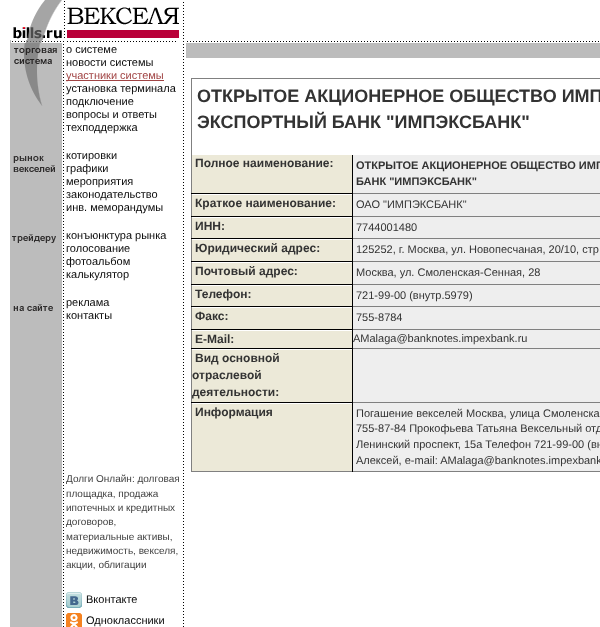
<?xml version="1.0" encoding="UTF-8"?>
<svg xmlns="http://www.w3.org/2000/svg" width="600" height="627">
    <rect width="100%" height="100%" fill="#FFFFFF"/>
    <image x="13" y="0" width="166" height="40" href="img_01.png"/>
    <image x="183" y="2" width="1" height="37" href="img_02.png"/>
    <rect x="10" y="325" width="52" height="302" fill="#BCBCBC"/>
    <rect x="10" y="40" width="1" height="3" fill="#BCBCBC"/>
    <image x="11" y="40" width="51" height="3" href="img_03.png"/>
    <rect x="10" y="43" width="52" height="282" fill="#BCBCBC"/>
    <image x="14" y="43" width="43" height="63" href="img_04.png"/>
    <image x="13" y="156" width="42" height="16" href="img_05.png"/>
    <image x="12" y="234" width="44" height="9" href="img_06.png"/>
    <image x="13" y="304" width="40" height="7" href="img_07.png"/>
    <image x="63" y="41" width="1" height="430" href="img_08.png"/>
    <image x="67" y="41" width="109" height="1" href="img_09.png"/>
    <text font-family="Liberation Sans" font-size="11" fill="#090909">
        <tspan x="66" y="53">о системе</tspan>
        <tspan x="66" y="66">новости системы</tspan>
    </text>
    <rect x="66" y="80" width="98" height="1" fill="#A14444"/>
    <text x="66" y="79" font-family="Liberation Sans" font-size="11" fill="#A14444">участники системы</text>
    <text font-family="Liberation Sans" font-size="11" fill="#090909">
        <tspan x="66" y="92">установка терминала</tspan>
        <tspan x="66" y="105">подключение</tspan>
        <tspan x="66" y="118">вопросы и ответы</tspan>
        <tspan x="66" y="131">техподдержка</tspan>
    </text>
    <text font-family="Liberation Sans" font-size="11" fill="#090909">
        <tspan x="66" y="159">котировки</tspan>
        <tspan x="66" y="172">графики</tspan>
        <tspan x="66" y="185">мероприятия</tspan>
        <tspan x="66" y="198">законодательство</tspan>
        <tspan x="66" y="211">инв. меморандумы</tspan>
    </text>
    <text font-family="Liberation Sans" font-size="11" fill="#090909">
        <tspan x="66" y="239">конъюнктура рынка</tspan>
        <tspan x="66" y="252">голосование</tspan>
        <tspan x="66" y="265">фотоальбом</tspan>
        <tspan x="66" y="278">калькулятор</tspan>
    </text>
    <text font-family="Liberation Sans" font-size="11" fill="#090909">
        <tspan x="66" y="306">реклама</tspan>
        <tspan x="66" y="319">контакты</tspan>
    </text>
    <image x="183" y="41" width="1" height="430" href="img_08.png"/>
    <image x="187" y="41" width="412" height="1" href="img_10.png"/>
    <rect x="186" y="43" width="414" height="15" fill="#BCBCBC"/>
    <rect x="191" y="78" width="409" height="1" fill="#808080"/>
    <rect x="191" y="471" width="409" height="1" fill="#808080"/>
    <rect x="191" y="78" width="1" height="394" fill="#808080"/>
    <text font-family="Liberation Sans" font-size="18" font-weight="700" fill="#333333">
        <tspan x="197" y="102">ОТКРЫТОЕ АКЦИОНЕРНОЕ ОБЩЕСТВО ИМП</tspan>
        <tspan x="197" y="128">ЭКСПОРТНЫЙ БАНК "ИМПЭКСБАНК"</tspan>
    </text>
    <rect x="192" y="155" width="160" height="38" fill="#ECE9D8"/>
    <rect x="352" y="402" width="1" height="70" fill="#000000"/>
    <rect x="352" y="402" width="248" height="1" fill="#808080"/>
    <rect x="352" y="348" width="1" height="55" fill="#000000"/>
    <rect x="352" y="348" width="248" height="1" fill="#808080"/>
    <rect x="352" y="329" width="1" height="20" fill="#000000"/>
    <rect x="352" y="329" width="248" height="1" fill="#808080"/>
    <rect x="352" y="306" width="1" height="24" fill="#000000"/>
    <rect x="352" y="306" width="248" height="1" fill="#808080"/>
    <rect x="352" y="284" width="1" height="23" fill="#000000"/>
    <rect x="352" y="284" width="248" height="1" fill="#808080"/>
    <rect x="352" y="261" width="1" height="24" fill="#000000"/>
    <rect x="352" y="261" width="248" height="1" fill="#808080"/>
    <rect x="352" y="238" width="1" height="24" fill="#000000"/>
    <rect x="352" y="238" width="248" height="1" fill="#808080"/>
    <rect x="352" y="216" width="1" height="23" fill="#000000"/>
    <rect x="352" y="216" width="248" height="1" fill="#808080"/>
    <rect x="352" y="193" width="1" height="24" fill="#000000"/>
    <rect x="352" y="193" width="248" height="1" fill="#808080"/>
    <rect x="352" y="155" width="1" height="39" fill="#000000"/>
    <rect x="191" y="193" width="162" height="1" fill="#000000"/>
    <text x="195" y="167" font-family="Liberation Sans" font-size="12" font-weight="700" fill="#333333">Полное наименование:</text>
    <rect x="353" y="155" width="247" height="38" fill="#EEEEEE"/>
    <text font-family="Liberation Sans" font-size="11" font-weight="700" fill="#333333">
        <tspan x="356" y="169">ОТКРЫТОЕ АКЦИОНЕРНОЕ ОБЩЕСТВО ИМП</tspan>
        <tspan x="356" y="185">БАНК "ИМПЭКСБАНК"</tspan>
    </text>
    <rect x="192" y="195" width="160" height="21" fill="#ECE9D8"/>
    <rect x="191" y="216" width="162" height="1" fill="#000000"/>
    <text x="195" y="207" font-family="Liberation Sans" font-size="12" font-weight="700" fill="#333333">Краткое наименование:</text>
    <rect x="353" y="194" width="247" height="22" fill="#EEEEEE"/>
    <text x="356" y="208" font-family="Liberation Sans" font-size="11" fill="#333333">ОАО "ИМПЭКСБАНК"</text>
    <rect x="192" y="218" width="160" height="20" fill="#ECE9D8"/>
    <rect x="191" y="238" width="162" height="1" fill="#000000"/>
    <text x="195" y="230" font-family="Liberation Sans" font-size="12" font-weight="700" fill="#333333">ИНН:</text>
    <rect x="353" y="217" width="247" height="21" fill="#EEEEEE"/>
    <text x="356" y="231" font-family="Liberation Sans" font-size="11" fill="#333333">7744001480</text>
    <rect x="192" y="240" width="160" height="21" fill="#ECE9D8"/>
    <rect x="191" y="261" width="162" height="1" fill="#000000"/>
    <text x="195" y="252" font-family="Liberation Sans" font-size="12" font-weight="700" fill="#333333">Юридический адрес:</text>
    <rect x="353" y="239" width="247" height="22" fill="#EEEEEE"/>
    <text x="356" y="253" font-family="Liberation Sans" font-size="11" fill="#333333">125252, г. Москва, ул. Новопесчаная, 20/10, стр</text>
    <rect x="192" y="263" width="160" height="21" fill="#ECE9D8"/>
    <rect x="191" y="284" width="162" height="1" fill="#000000"/>
    <text x="195" y="275" font-family="Liberation Sans" font-size="12" font-weight="700" fill="#333333">Почтовый адрес:</text>
    <rect x="353" y="262" width="247" height="22" fill="#EEEEEE"/>
    <text x="356" y="276" font-family="Liberation Sans" font-size="11" fill="#333333">Москва, ул. Смоленская-Сенная, 28</text>
    <rect x="192" y="286" width="160" height="20" fill="#ECE9D8"/>
    <rect x="191" y="306" width="162" height="1" fill="#000000"/>
    <text x="195" y="298" font-family="Liberation Sans" font-size="12" font-weight="700" fill="#333333">Телефон:</text>
    <rect x="353" y="285" width="247" height="21" fill="#EEEEEE"/>
    <text x="356" y="299" font-family="Liberation Sans" font-size="11" fill="#333333">721-99-00 (внутр.5979)</text>
    <rect x="192" y="308" width="160" height="21" fill="#ECE9D8"/>
    <rect x="191" y="329" width="162" height="1" fill="#000000"/>
    <text x="195" y="320" font-family="Liberation Sans" font-size="12" font-weight="700" fill="#333333">Факс:</text>
    <rect x="353" y="307" width="247" height="22" fill="#EEEEEE"/>
    <text x="356" y="321" font-family="Liberation Sans" font-size="11" fill="#333333">755-8784</text>
    <rect x="192" y="331" width="160" height="17" fill="#ECE9D8"/>
    <rect x="191" y="348" width="162" height="1" fill="#000000"/>
    <text x="195" y="343" font-family="Liberation Sans" font-size="12" font-weight="700" fill="#333333">E-Mail:</text>
    <rect x="353" y="330" width="247" height="18" fill="#EEEEEE"/>
    <text x="353" y="342" font-family="Liberation Sans" font-size="11" fill="#333333">AMalaga@banknotes.impexbank.ru</text>
    <rect x="192" y="350" width="160" height="52" fill="#ECE9D8"/>
    <rect x="191" y="402" width="162" height="1" fill="#000000"/>
    <text x="195" y="362" font-family="Liberation Sans" font-size="12" font-weight="700" fill="#333333">Вид основной</text>
    <text font-family="Liberation Sans" font-size="12" font-weight="700" fill="#333333">
        <tspan x="192" y="379">отраслевой</tspan>
        <tspan x="192" y="396">деятельности:</tspan>
    </text>
    <rect x="353" y="349" width="247" height="53" fill="#EEEEEE"/>
    <rect x="192" y="404" width="160" height="67" fill="#ECE9D8"/>
    <text x="195" y="416" font-family="Liberation Sans" font-size="12" font-weight="700" fill="#333333">Информация</text>
    <rect x="353" y="403" width="247" height="68" fill="#EEEEEE"/>
    <text font-family="Liberation Sans" font-size="11" fill="#333333">
        <tspan x="356" y="417">Погашение векселей Москва, улица Смоленска</tspan>
        <tspan x="356" y="432">755-87-84 Прокофьева Татьяна Вексельный отд</tspan>
        <tspan x="356" y="448">Ленинский проспект, 15а Телефон 721-99-00 (вн</tspan>
        <tspan x="356" y="464">Алексей, e-mail: AMalaga@banknotes.impexbank</tspan>
    </text>
    <image x="63" y="473" width="1" height="154" href="img_11.png"/>
    <text font-family="Liberation Sans" font-size="10" fill="#414141">
        <tspan x="66" y="482">Долги Онлайн: долговая</tspan>
        <tspan x="66" y="497">площадка, продажа</tspan>
        <tspan x="66" y="511">ипотечных и кредитных</tspan>
        <tspan x="66" y="525">договоров,</tspan>
        <tspan x="66" y="540">материальные активы,</tspan>
        <tspan x="66" y="554">недвижимость, векселя,</tspan>
        <tspan x="66" y="568">акции, облигации</tspan>
    </text>
    <image x="66" y="592" width="16" height="16" href="img_12.png"/>
    <text x="86" y="603" font-family="Liberation Sans" font-size="11" fill="#090909">Вконтакте</text>
    <image x="66" y="613" width="16" height="14" href="img_13.png"/>
    <text x="86" y="624" font-family="Liberation Sans" font-size="11" fill="#090909">Одноклассники</text>
    <image x="183" y="473" width="1" height="154" href="img_11.png"/>
</svg>
